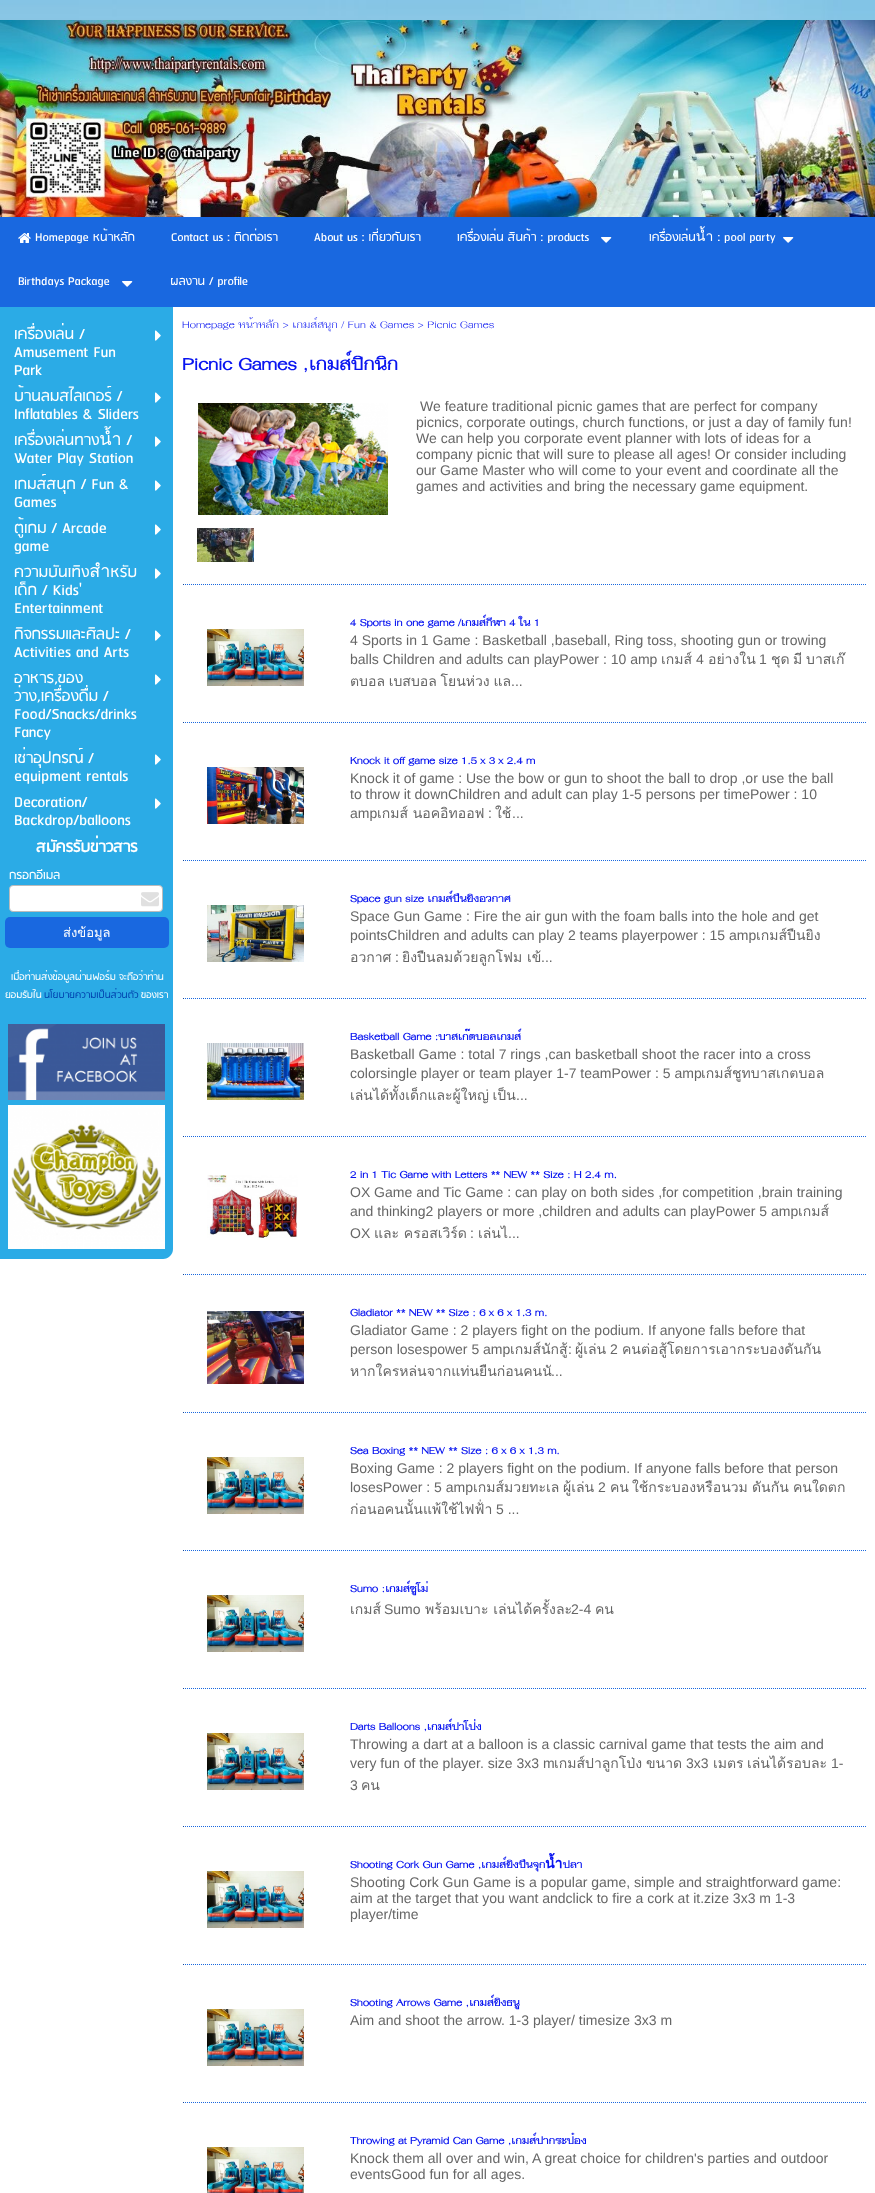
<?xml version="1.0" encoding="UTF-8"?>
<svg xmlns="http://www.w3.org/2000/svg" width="875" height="2193">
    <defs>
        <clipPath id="clip1"><rect x="350" y="1433" width="498" height="87"/></clipPath>
    </defs>
    <rect width="100%" height="100%" fill="#FFFFFF"/>
    <image x="0" y="0" width="875" height="20" href="img_01.png"/>
    <image x="0" y="20" width="875" height="197" href="img_02.png"/>
    <rect x="0" y="217" width="875" height="90" fill="#1968E0"/>
    <image x="18" y="233" width="13" height="10" href="img_03.png"/>
    <text x="35" y="241" font-family="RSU" font-size="14" fill="#FFFFFF">Homepage หน้าหลัก</text>
    <text x="171" y="241" font-family="RSU" font-size="14" fill="#FFFFFF">Contact us : ติดต่อเรา</text>
    <text x="314" y="241" font-family="RSU" font-size="14" fill="#FFFFFF">About us : เกี่ยวกับเรา</text>
    <text x="457" y="241" font-family="RSU" font-size="14" fill="#FFFFFF">เครื่องเล่น สินค้า : products</text>
    <image x="601" y="237" width="11" height="6" href="img_04.png"/>
    <text x="649" y="241" font-family="RSU" font-size="14" fill="#FFFFFF">เครื่องเล่นน้ำ : pool party</text>
    <image x="783" y="237" width="11" height="6" href="img_04.png"/>
    <text x="18" y="285" font-family="RSU" font-size="14" fill="#FFFFFF">Birthdays Package</text>
    <image x="122" y="281" width="11" height="6" href="img_04.png"/>
    <text x="170" y="285" font-family="RSU" font-size="14" fill="#FFFFFF">ผลงาน / profile</text>
    <path d="M 0 307 H 173 V 1249 C 173 1254.5 168.5 1259 163 1259 H 0 Z" fill="#2BABE6"/>
    <text font-family="RSU" font-size="18" fill="#FFFFFF">
        <tspan x="14" y="339">เครื่องเล่น /</tspan>
        <tspan x="14" y="357">Amusement Fun</tspan>
        <tspan x="14" y="375">Park</tspan>
    </text>
    <image x="155" y="330" width="6" height="11" href="img_05.png"/>
    <text font-family="RSU" font-size="18" fill="#FFFFFF">
        <tspan x="14" y="401">บ้านลมสไลเดอร์ /</tspan>
        <tspan x="14" y="419">Inflatables &amp; Sliders</tspan>
    </text>
    <image x="155" y="392" width="6" height="11" href="img_05.png"/>
    <text font-family="RSU" font-size="18" fill="#FFFFFF">
        <tspan x="14" y="445">เครื่องเล่นทางน้ำ /</tspan>
        <tspan x="14" y="463">Water Play Station</tspan>
    </text>
    <image x="155" y="436" width="6" height="11" href="img_05.png"/>
    <text font-family="RSU" font-size="18" fill="#FFFFFF">
        <tspan x="14" y="489">เกมส์สนุก / Fun &amp;</tspan>
        <tspan x="14" y="507">Games</tspan>
    </text>
    <image x="155" y="480" width="6" height="11" href="img_05.png"/>
    <text font-family="RSU" font-size="18" fill="#FFFFFF">
        <tspan x="14" y="533">ตู้เกม / Arcade</tspan>
        <tspan x="14" y="551">game</tspan>
    </text>
    <image x="155" y="524" width="6" height="11" href="img_05.png"/>
    <text font-family="RSU" font-size="18" fill="#FFFFFF">
        <tspan x="14" y="577">ความบันเทิงสำหรับ</tspan>
        <tspan x="14" y="595">เด็ก / Kids'</tspan>
        <tspan x="14" y="613">Entertainment</tspan>
    </text>
    <image x="155" y="568" width="6" height="11" href="img_05.png"/>
    <text font-family="RSU" font-size="18" fill="#FFFFFF">
        <tspan x="14" y="639">กิจกรรมและศิลปะ /</tspan>
        <tspan x="14" y="657">Activities and Arts</tspan>
    </text>
    <image x="155" y="630" width="6" height="11" href="img_05.png"/>
    <text font-family="RSU" font-size="18" fill="#FFFFFF">
        <tspan x="14" y="683">อาหาร,ของ</tspan>
        <tspan x="14" y="701">ว่าง,เครื่องดื่ม /</tspan>
        <tspan x="14" y="719">Food/Snacks/drinks</tspan>
        <tspan x="14" y="737">Fancy</tspan>
    </text>
    <image x="155" y="674" width="6" height="11" href="img_05.png"/>
    <text font-family="RSU" font-size="18" fill="#FFFFFF">
        <tspan x="14" y="763">เช่าอุปกรณ์ /</tspan>
        <tspan x="14" y="781">equipment rentals</tspan>
    </text>
    <image x="155" y="754" width="6" height="11" href="img_05.png"/>
    <text font-family="RSU" font-size="18" fill="#FFFFFF">
        <tspan x="14" y="807">Decoration/</tspan>
        <tspan x="14" y="825">Backdrop/balloons</tspan>
    </text>
    <image x="155" y="798" width="6" height="11" href="img_05.png"/>
    <text x="36" y="852" font-family="RSU" font-size="18" font-weight="700" fill="#FFFFFF">สมัครรับข่าวสาร</text>
    <text x="9" y="879" font-family="RSU" font-size="14" fill="#FFFFFF">กรอกอีเมล</text>
    <rect x="9.5" y="885.5" width="153" height="26" rx="3.5" fill="#FFFFFF" stroke="#BBBBBB"/>
    <image x="141" y="892" width="18" height="15" href="img_06.png"/>
    <rect x="5" y="917" width="164" height="31" rx="5" fill="#1968E0"/>
    <text x="63" y="937" font-family="Loma" font-size="13" fill="#FFFFFF">ส่งข้อมูล</text>
    <text x="11" y="980" font-family="RSU" font-size="11.25" fill="#FFFFFF">เมื่อท่านส่งข้อมูลผ่านฟอร์ม จะถือว่าท่าน</text>
    <text x="5" y="998" font-family="RSU" font-size="11.25" fill="#FFFFFF">ยอมรับใน</text>
    <text x="44" y="998" font-family="RSU" font-size="11.25" fill="#0044B0">นโยบายความเป็นส่วนตัว</text>
    <text x="141" y="998" font-family="RSU" font-size="11.25" fill="#FFFFFF">ของเรา</text>
    <image x="8" y="1024" width="157" height="76" href="img_07.png"/>
    <image x="8" y="1105" width="157" height="144" href="img_08.png"/>
    <text x="182" y="328" font-family="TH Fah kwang" font-size="14" fill="#0915F0">Homepage หน้าหลัก &gt; เกมส์สนุก / Fun &amp; Games &gt; Picnic Games</text>
    <text x="182" y="370" font-family="TH Fah kwang" font-size="24" font-weight="700" fill="#0915F0">Picnic Games ,เกมส์ปิกนิก</text>
    <image x="198" y="403" width="190" height="112" href="img_09.png"/>
    <image x="197" y="528" width="57" height="34" href="img_10.png"/>
    <text x="420" y="411" font-family="Liberation Sans" font-size="14" fill="#666666">We feature traditional picnic games that are perfect for company</text>
    <text font-family="Liberation Sans" font-size="14" fill="#666666">
        <tspan x="416" y="427">picnics, corporate outings, church functions, or just a day of family fun!</tspan>
        <tspan x="416" y="443">We can help you corporate event planner with lots of ideas for a</tspan>
        <tspan x="416" y="459">company picnic that will sure to please all ages! Or consider including</tspan>
        <tspan x="416" y="475">our Game Master who will come to your event and coordinate all the</tspan>
        <tspan x="416" y="491">games and activities and bring the necessary game equipment.</tspan>
    </text>
    <path d="M 183 584.5 H 866" fill="none" stroke="#1968E0" stroke-dasharray="1 1"/>
    <rect x="183" y="584" width="1" height="1" fill="#114595"/>
    <image x="207" y="629" width="97" height="57" href="img_11.png"/>
    <text x="350" y="626" font-family="TH Fah kwang" font-size="14" font-weight="700" fill="#0915F0">4 Sports in one game /เกมส์กีฬา 4 ใน 1</text>
    <text font-family="Liberation Sans" font-size="14" fill="#666666">
        <tspan x="350" y="645">4 Sports in 1 Game : Basketball ,baseball, Ring toss, shooting gun or trowing</tspan>
        <tspan x="350" y="664">balls Children and adults can playPower : 10 amp</tspan>
    </text>
    <text x="661" y="664" font-family="Loma" font-size="14" fill="#666666">เกมส์</text>
    <text x="696" y="664" font-family="Liberation Sans" font-size="14" fill="#666666">4</text>
    <text x="708" y="664" font-family="Loma" font-size="14" fill="#666666">อย่างใน</text>
    <text x="759" y="664" font-family="Liberation Sans" font-size="14" fill="#666666">1</text>
    <text x="771" y="664" font-family="Loma" font-size="14" fill="#666666">ชุด</text>
    <text x="793" y="664" font-family="Loma" font-size="14" fill="#666666">มี</text>
    <text x="806" y="664" font-family="Loma" font-size="14" fill="#666666">บาสเก๊</text>
    <text x="350" y="686" word-spacing="-1" font-family="Loma" font-size="14" fill="#666666">ตบอล เบสบอล โยนห่วง แล</text>
    <text x="511" y="686" font-family="Liberation Sans" font-size="14" fill="#666666">...</text>
    <path d="M 183 722.5 H 866" fill="none" stroke="#1968E0" stroke-dasharray="1 1"/>
    <rect x="183" y="722" width="1" height="1" fill="#114595"/>
    <image x="207" y="767" width="97" height="57" href="img_12.png"/>
    <text x="350" y="764" font-family="TH Fah kwang" font-size="14" font-weight="700" fill="#0915F0">Knock it off game size 1.5 x 3 x 2.4 m</text>
    <text font-family="Liberation Sans" font-size="14" fill="#666666">
        <tspan x="350" y="783">Knock it of game : Use the bow or gun to shoot the ball to drop ,or use the ball</tspan>
        <tspan x="350" y="799">to throw it downChildren and adult can play 1-5 persons per timePower : 10</tspan>
        <tspan x="350" y="818">amp</tspan>
    </text>
    <text x="377" y="818" font-family="Loma" font-size="14" fill="#666666">เกมส์ นอคอิทออฟ</text>
    <text x="488" y="818" font-family="Liberation Sans" font-size="14" fill="#666666">:</text>
    <text x="495" y="818" font-family="Loma" font-size="14" fill="#666666">ใช้</text>
    <text x="512" y="818" font-family="Liberation Sans" font-size="14" fill="#666666">...</text>
    <path d="M 183 860.5 H 866" fill="none" stroke="#1968E0" stroke-dasharray="1 1"/>
    <rect x="183" y="860" width="1" height="1" fill="#114595"/>
    <image x="207" y="905" width="97" height="57" href="img_13.png"/>
    <text x="350" y="902" font-family="TH Fah kwang" font-size="14" font-weight="700" fill="#0915F0">Space gun size เกมส์ปืนยิงอวกาศ</text>
    <text font-family="Liberation Sans" font-size="14" fill="#666666">
        <tspan x="350" y="921">Space Gun Game : Fire the air gun with the foam balls into the hole and get</tspan>
        <tspan x="350" y="940">pointsChildren and adults can play 2 teams playerpower : 15 amp</tspan>
    </text>
    <text x="756" y="940" font-family="Loma" font-size="14" fill="#666666">เกมส์ปืนยิง</text>
    <text x="350" y="962" font-family="Loma" font-size="14" fill="#666666">อวกาศ</text>
    <text x="395" y="962" font-family="Liberation Sans" font-size="14" fill="#666666">:</text>
    <text x="402" y="962" font-family="Loma" font-size="14" fill="#666666">ยิงปืนลมด้วยลูกโฟม เข้</text>
    <text x="541" y="962" font-family="Liberation Sans" font-size="14" fill="#666666">...</text>
    <path d="M 183 998.5 H 866" fill="none" stroke="#1968E0" stroke-dasharray="1 1"/>
    <rect x="183" y="998" width="1" height="1" fill="#114595"/>
    <image x="207" y="1043" width="97" height="57" href="img_14.png"/>
    <text x="350" y="1040" font-family="TH Fah kwang" font-size="14" font-weight="700" fill="#0915F0">Basketball Game :บาสเก๊ตบอลเกมส์</text>
    <text font-family="Liberation Sans" font-size="14" fill="#666666">
        <tspan x="350" y="1059">Basketball Game : total 7 rings ,can basketball shoot the racer into a cross</tspan>
        <tspan x="350" y="1078">colorsingle player or team player 1-7 teamPower : 5 amp</tspan>
    </text>
    <text x="701" y="1078" font-family="Loma" font-size="14" fill="#666666">เกมส์ชูทบาสเกตบอล</text>
    <text x="350" y="1100" word-spacing="-1" font-family="Loma" font-size="14" fill="#666666">เล่นได้ทั้งเด็กและผู้ใหญ่ เป็น</text>
    <text x="516" y="1100" font-family="Liberation Sans" font-size="14" fill="#666666">...</text>
    <path d="M 183 1136.5 H 866" fill="none" stroke="#1968E0" stroke-dasharray="1 1"/>
    <rect x="183" y="1136" width="1" height="1" fill="#114595"/>
    <image x="207" y="1175" width="91" height="65" href="img_15.png"/>
    <text x="350" y="1178" font-family="TH Fah kwang" font-size="14" font-weight="700" fill="#0915F0">2 in 1 Tic Game with Letters ** NEW ** Size : H 2.4 m.</text>
    <text font-family="Liberation Sans" font-size="14" fill="#666666">
        <tspan x="350" y="1197">OX Game and Tic Game : can play on both sides ,for competition ,brain training</tspan>
        <tspan x="350" y="1216">and thinking2 players or more ,children and adults can playPower 5 amp</tspan>
    </text>
    <text x="798" y="1216" font-family="Loma" font-size="14" fill="#666666">เกมส์</text>
    <text x="350" y="1238" font-family="Liberation Sans" font-size="14" fill="#666666">OX</text>
    <text x="374" y="1238" font-family="Loma" font-size="14" fill="#666666">และ ครอสเวิร์ด</text>
    <text x="470" y="1238" font-family="Liberation Sans" font-size="14" fill="#666666">:</text>
    <text x="478" y="1238" font-family="Loma" font-size="14" fill="#666666">เล่นไ</text>
    <text x="508" y="1238" font-family="Liberation Sans" font-size="14" fill="#666666">...</text>
    <path d="M 183 1274.5 H 866" fill="none" stroke="#1968E0" stroke-dasharray="1 1"/>
    <rect x="183" y="1274" width="1" height="1" fill="#114595"/>
    <image x="207" y="1311" width="97" height="73" href="img_16.png"/>
    <text x="350" y="1316" font-family="TH Fah kwang" font-size="14" font-weight="700" fill="#0915F0">Gladiator ** NEW ** Size : 6 x 6 x 1.3 m.</text>
    <text font-family="Liberation Sans" font-size="14" fill="#666666">
        <tspan x="350" y="1335">Gladiator Game : 2 players fight on the podium. If anyone falls before that</tspan>
        <tspan x="350" y="1354">person losespower 5 amp</tspan>
    </text>
    <text x="510" y="1354" font-family="Loma" font-size="14" fill="#666666">เกมส์นักสู้</text>
    <text x="568" y="1354" font-family="Liberation Sans" font-size="14" fill="#666666">:</text>
    <text x="575" y="1354" font-family="Loma" font-size="14" fill="#666666">ผู้เล่น</text>
    <text x="610" y="1354" font-family="Liberation Sans" font-size="14" fill="#666666">2</text>
    <text x="622" y="1354" font-family="Loma" font-size="14" fill="#666666">คนต่อสู้โดยการเอากระบองดันกัน</text>
    <text x="350" y="1376" font-family="Loma" font-size="14" fill="#666666">หากใครหล่นจากแท่นยืนก่อนคนนั</text>
    <text x="551" y="1376" font-family="Liberation Sans" font-size="14" fill="#666666">...</text>
    <path d="M 183 1412.5 H 866" fill="none" stroke="#1968E0" stroke-dasharray="1 1"/>
    <rect x="183" y="1412" width="1" height="1" fill="#114595"/>
    <image x="207" y="1457" width="97" height="57" href="img_11.png"/>
    <text x="350" y="1454" font-family="TH Fah kwang" font-size="14" font-weight="700" fill="#0915F0">Sea Boxing ** NEW ** Size : 6 x 6 x 1.3 m.</text>
    <text font-family="Liberation Sans" font-size="14" fill="#666666">
        <tspan x="350" y="1473">Boxing Game : 2 players fight on the podium. If anyone falls before that person</tspan>
        <tspan x="350" y="1492">losesPower : 5 amp</tspan>
    </text>
    <text x="473" y="1492" font-family="Loma" font-size="14" fill="#666666">เกมส์มวยทะเล</text>
    <text x="563" y="1492" font-family="Loma" font-size="14" fill="#666666">ผู้เล่น</text>
    <text x="598" y="1492" font-family="Liberation Sans" font-size="14" fill="#666666">2</text>
    <text x="610" y="1492" font-family="Loma" font-size="14" fill="#666666">คน</text>
    <text x="632" y="1492" font-family="Loma" font-size="14" fill="#666666">ใช้กระบองหรือนวม</text>
    <text x="752" y="1492" font-family="Loma" font-size="14" fill="#666666">ดันกัน</text>
    <text x="793" y="1492" font-family="Loma" font-size="14" fill="#666666">คนใดตก</text>
    <g clip-path="url(#clip1)">
        <text x="350" y="1514" font-family="Loma" font-size="14" fill="#666666">ก่อนอคนนั้นแพ้ใช้ไฟฟ้่า</text>
    </g>
    <text x="496" y="1514" font-family="Liberation Sans" font-size="14" fill="#666666">5 ...</text>
    <path d="M 183 1550.5 H 866" fill="none" stroke="#1968E0" stroke-dasharray="1 1"/>
    <rect x="183" y="1550" width="1" height="1" fill="#114595"/>
    <image x="207" y="1595" width="97" height="57" href="img_11.png"/>
    <text x="350" y="1592" font-family="TH Fah kwang" font-size="14" font-weight="700" fill="#0915F0">Sumo :เกมส์ซูโม่</text>
    <text x="350" y="1614" font-family="Loma" font-size="14" fill="#666666">เกมส์</text>
    <text x="384" y="1614" font-family="Liberation Sans" font-size="14" fill="#666666">Sumo</text>
    <text x="425" y="1614" font-family="Loma" font-size="14" fill="#666666">พร้อมเบาะ เล่นได้ครั้งละ</text>
    <text x="571" y="1614" font-family="Liberation Sans" font-size="14" fill="#666666">2-4</text>
    <text x="595" y="1614" font-family="Loma" font-size="14" fill="#666666">คน</text>
    <path d="M 183 1688.5 H 866" fill="none" stroke="#1968E0" stroke-dasharray="1 1"/>
    <rect x="183" y="1688" width="1" height="1" fill="#114595"/>
    <image x="207" y="1733" width="97" height="57" href="img_11.png"/>
    <text x="350" y="1730" font-family="TH Fah kwang" font-size="14" font-weight="700" fill="#0915F0">Darts Balloons ,เกมส์ปาโป่ง</text>
    <text font-family="Liberation Sans" font-size="14" fill="#666666">
        <tspan x="350" y="1749">Throwing a dart at a balloon is a classic carnival game that tests the aim and</tspan>
        <tspan x="350" y="1768">very fun of the player. size 3x3 m</tspan>
    </text>
    <text x="554" y="1768" font-family="Loma" font-size="14" fill="#666666">เกมส์ปาลูกโป่ง</text>
    <text x="646" y="1768" font-family="Loma" font-size="14" fill="#666666">ขนาด</text>
    <text x="686" y="1768" font-family="Liberation Sans" font-size="14" fill="#666666">3x3</text>
    <text x="713" y="1768" font-family="Loma" font-size="14" fill="#666666">เมตร</text>
    <text x="747" y="1768" font-family="Loma" font-size="14" fill="#666666">เล่นได้รอบละ</text>
    <text x="831" y="1768" font-family="Liberation Sans" font-size="14" fill="#666666">1-</text>
    <text x="350" y="1790" font-family="Liberation Sans" font-size="14" fill="#666666">3</text>
    <text x="361" y="1790" font-family="Loma" font-size="14" fill="#666666">คน</text>
    <path d="M 183 1826.5 H 866" fill="none" stroke="#1968E0" stroke-dasharray="1 1"/>
    <rect x="183" y="1826" width="1" height="1" fill="#114595"/>
    <image x="207" y="1871" width="97" height="57" href="img_11.png"/>
    <text x="350" y="1868" font-family="TH Fah kwang" font-size="14" font-weight="700" fill="#0915F0">Shooting Cork Gun Game ,เกมส์ยิงปืนจุกน้ำปลา</text>
    <text font-family="Liberation Sans" font-size="14" fill="#666666">
        <tspan x="350" y="1887">Shooting Cork Gun Game is a popular game, simple and straightforward game:</tspan>
        <tspan x="350" y="1903">aim at the target that you want andclick to fire a cork at it.zize 3x3 m 1-3</tspan>
        <tspan x="350" y="1919">player/time</tspan>
    </text>
    <path d="M 183 1964.5 H 866" fill="none" stroke="#1968E0" stroke-dasharray="1 1"/>
    <rect x="183" y="1964" width="1" height="1" fill="#114595"/>
    <image x="207" y="2009" width="97" height="57" href="img_11.png"/>
    <text x="350" y="2006" font-family="TH Fah kwang" font-size="14" font-weight="700" fill="#0915F0">Shooting Arrows Game ,เกมส์ยิงธนู</text>
    <text x="350" y="2025" font-family="Liberation Sans" font-size="14" fill="#666666">Aim and shoot the arrow. 1-3 player/ timesize 3x3 m</text>
    <path d="M 183 2102.5 H 866" fill="none" stroke="#1968E0" stroke-dasharray="1 1"/>
    <rect x="183" y="2102" width="1" height="1" fill="#114595"/>
    <image x="207" y="2147" width="97" height="46" href="img_17.png"/>
    <text x="350" y="2144" font-family="TH Fah kwang" font-size="14" font-weight="700" fill="#0915F0">Throwing at Pyramid Can Game ,เกมส์ปากระป๋อง</text>
    <text font-family="Liberation Sans" font-size="14" fill="#666666">
        <tspan x="350" y="2163">Knock them all over and win, A great choice for children's parties and outdoor</tspan>
        <tspan x="350" y="2179">eventsGood fun for all ages.</tspan>
    </text>
</svg>
